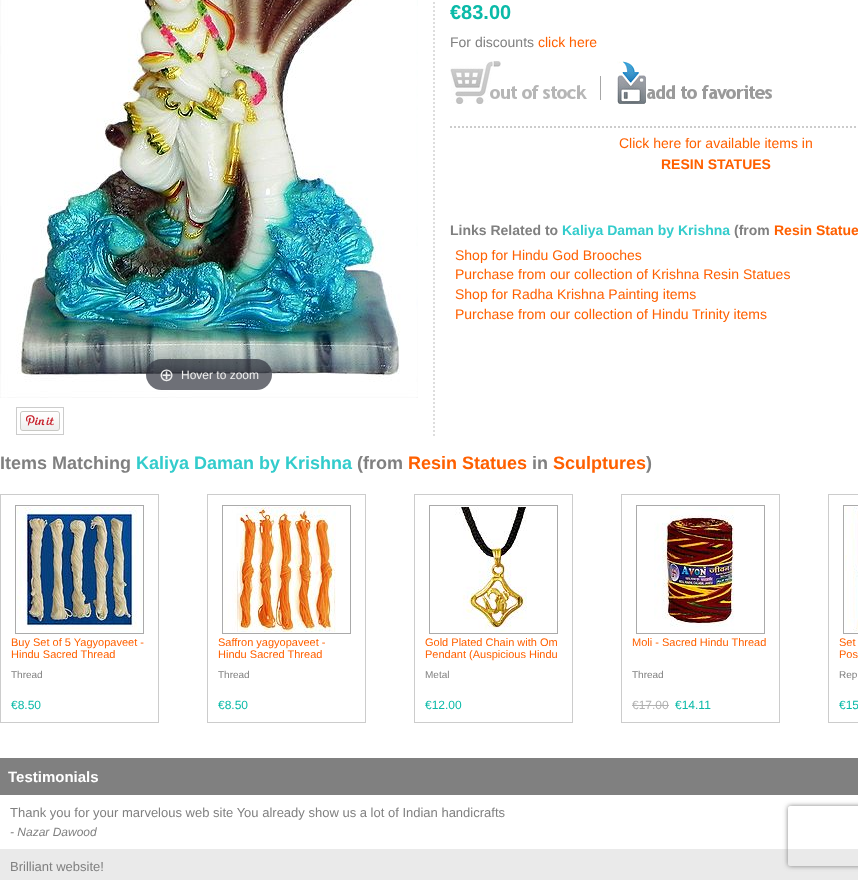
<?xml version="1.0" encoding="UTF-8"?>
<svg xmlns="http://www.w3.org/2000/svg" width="858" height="880">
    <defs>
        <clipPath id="clip1"><path d="M 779 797 H 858 V 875 H 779 Z M 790 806 H 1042 C 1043 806 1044 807 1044 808 V 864 C 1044 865 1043 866 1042 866 H 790 C 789 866 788 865 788 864 V 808 C 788 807 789 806 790 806 Z" clip-rule="evenodd"/></clipPath>
        <filter id="blur1" x="-50%" y="-200%" width="200%" height="500%"><feGaussianBlur stdDeviation="2.5"/></filter>
    </defs>
    <rect width="100%" height="100%" fill="#FFFFFF"/>
    <text x="450" y="19" font-family="Liberation Sans" font-size="20" font-weight="700" fill="#0ABAA8">€83.00</text>
    <text x="450" y="47" font-family="Liberation Sans" font-size="14" fill="#808080">For discounts</text>
    <text x="538" y="47" font-family="Liberation Sans" font-size="14" fill="#FF6000">click here</text>
    <image x="450" y="61" width="137" height="43" href="img_01.png"/>
    <rect x="600" y="76" width="1" height="24" fill="#A7A7A7"/>
    <image x="617" y="61" width="155" height="43" href="img_02.png"/>
    <path d="M 450 127 H 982" fill="none" stroke="#CCCCCC" stroke-width="2" stroke-dasharray="2 2"/>
    <text x="619" y="148" font-family="Liberation Sans" font-size="14" fill="#FF6000">Click here for available items in</text>
    <text x="661" y="169" font-family="Liberation Sans" font-size="14" font-weight="700" fill="#FF6000">RESIN STATUES</text>
    <text x="450" y="235" font-family="Liberation Sans" font-size="14" font-weight="700" fill="#808080">Links Related to</text>
    <text x="562" y="235" font-family="Liberation Sans" font-size="14" font-weight="700" fill="#33CCCC">Kaliya Daman by Krishna</text>
    <text x="734" y="235" font-family="Liberation Sans" font-size="14" font-weight="700" fill="#808080">(from</text>
    <text x="774" y="235" font-family="Liberation Sans" font-size="14" font-weight="700" fill="#FF6000">Resin Statue</text>
    <text font-family="Liberation Sans" font-size="14" fill="#FF6000">
        <tspan x="455" y="260">Shop for Hindu God Brooches</tspan>
        <tspan x="455" y="279">Purchase from our collection of Krishna Resin Statues</tspan>
        <tspan x="455" y="299">Shop for Radha Krishna Painting items</tspan>
        <tspan x="455" y="319">Purchase from our collection of Hindu Trinity items</tspan>
    </text>
    <path d="M 434 -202 V 437" fill="none" stroke="#DDDDDD" stroke-width="2" stroke-dasharray="2 2"/>
    <image x="0" y="0" width="418" height="398" href="img_03.png"/>
    <rect x="146" y="359" width="126" height="31" rx="15.5" fill="#31333D" fill-opacity="0.7"/>
    <text x="159" y="381" font-family="DejaVu Sans" font-size="18" fill="#EEEEEE">⊕</text>
    <text x="181" y="379" font-family="Liberation Sans" font-size="12" fill="#EEEEEE">Hover to zoom</text>
    <rect x="16.5" y="407.5" width="47" height="27" fill="none" stroke="#CCCCCC"/>
    <image x="20" y="411" width="40" height="20" href="img_04.png"/>
    <text x="0" y="469" font-family="Liberation Sans" font-size="18" font-weight="700" fill="#808080">Items Matching</text>
    <text x="136" y="469" font-family="Liberation Sans" font-size="18" font-weight="700" fill="#33CCCC">Kaliya Daman by Krishna</text>
    <text x="357" y="469" font-family="Liberation Sans" font-size="18" font-weight="700" fill="#808080">(from</text>
    <text x="408" y="469" font-family="Liberation Sans" font-size="18" font-weight="700" fill="#FF6000">Resin Statues</text>
    <text x="532" y="469" font-family="Liberation Sans" font-size="18" font-weight="700" fill="#808080">in</text>
    <text x="553" y="469" font-family="Liberation Sans" font-size="18" font-weight="700" fill="#FF6000">Sculptures</text>
    <text x="646" y="469" font-family="Liberation Sans" font-size="18" font-weight="700" fill="#808080">)</text>
    <rect x="0.5" y="494.5" width="158" height="228" fill="none" stroke="#CCCCCC"/>
    <rect x="15.5" y="505.5" width="128" height="128" fill="none" stroke="#AAAAAA"/>
    <image x="17" y="507" width="125" height="125" href="img_05.png"/>
    <text font-family="Liberation Sans" font-size="11" fill="#FF6000">
        <tspan x="11" y="646">Buy Set of 5 Yagyopaveet -</tspan>
        <tspan x="11" y="658">Hindu Sacred Thread</tspan>
    </text>
    <text x="11" y="678" font-family="Liberation Sans" font-size="10" fill="#808080">Thread</text>
    <text x="11" y="709" font-family="Liberation Sans" font-size="12" fill="#0ABAA8">€8.50</text>
    <rect x="207.5" y="494.5" width="158" height="228" fill="none" stroke="#CCCCCC"/>
    <rect x="222.5" y="505.5" width="128" height="128" fill="none" stroke="#AAAAAA"/>
    <image x="224" y="507" width="112" height="125" href="img_06.png"/>
    <text font-family="Liberation Sans" font-size="11" fill="#FF6000">
        <tspan x="218" y="646">Saffron yagyopaveet -</tspan>
        <tspan x="218" y="658">Hindu Sacred Thread</tspan>
    </text>
    <text x="218" y="678" font-family="Liberation Sans" font-size="10" fill="#808080">Thread</text>
    <text x="218" y="709" font-family="Liberation Sans" font-size="12" fill="#0ABAA8">€8.50</text>
    <rect x="414.5" y="494.5" width="158" height="228" fill="none" stroke="#CCCCCC"/>
    <rect x="429.5" y="505.5" width="128" height="128" fill="none" stroke="#AAAAAA"/>
    <image x="455" y="507" width="72" height="125" href="img_07.png"/>
    <text font-family="Liberation Sans" font-size="11" fill="#FF6000">
        <tspan x="425" y="646">Gold Plated Chain with Om</tspan>
        <tspan x="425" y="658">Pendant (Auspicious Hindu</tspan>
    </text>
    <text x="425" y="678" font-family="Liberation Sans" font-size="10" fill="#808080">Metal</text>
    <text x="425" y="709" font-family="Liberation Sans" font-size="12" fill="#0ABAA8">€12.00</text>
    <rect x="621.5" y="494.5" width="158" height="228" fill="none" stroke="#CCCCCC"/>
    <rect x="636.5" y="505.5" width="128" height="128" fill="none" stroke="#AAAAAA"/>
    <image x="654" y="507" width="81" height="125" href="img_08.png"/>
    <text x="632" y="646" font-family="Liberation Sans" font-size="11" fill="#FF6000">Moli - Sacred Hindu Thread</text>
    <text x="632" y="678" font-family="Liberation Sans" font-size="10" fill="#808080">Thread</text>
    <text x="632" y="709" font-family="Liberation Sans" font-size="12" fill="#B1B1B1">€17.00</text>
    <rect x="632" y="705" width="37" height="1" fill="#B1B1B1"/>
    <text x="675" y="709" font-family="Liberation Sans" font-size="12" fill="#0ABAA8">€14.11</text>
    <rect x="828.5" y="494.5" width="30" height="228" fill="none" stroke="#CCCCCC"/>
    <rect x="843.5" y="505.5" width="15" height="128" fill="none" stroke="#AAAAAA"/>
    <image x="845" y="507" width="13" height="125" href="img_09.png"/>
    <text font-family="Liberation Sans" font-size="11" fill="#FF6000">
        <tspan x="839" y="646">Set</tspan>
        <tspan x="839" y="658">Pos</tspan>
    </text>
    <text x="839" y="678" font-family="Liberation Sans" font-size="10" fill="#808080">Rep</text>
    <text x="839" y="709" font-family="Liberation Sans" font-size="12" fill="#0ABAA8">€15</text>
    <rect x="0" y="758" width="858" height="37" fill="#808080"/>
    <text x="8" y="782" font-family="Liberation Sans" font-size="15" font-weight="700" fill="#FFFFFF">Testimonials</text>
    <text x="10" y="817" font-family="Liberation Sans" font-size="13" fill="#808080">Thank you for your marvelous web site You already show us a lot of Indian handicrafts</text>
    <text x="10" y="836" font-family="Liberation Sans" font-size="12" font-style="italic" fill="#808080">- Nazar Dawood</text>
    <rect x="0" y="849" width="858" height="31" fill="#EAEAEA"/>
    <text x="10" y="871" font-family="Liberation Sans" font-size="13" fill="#808080">Brilliant website!</text>
    <g clip-path="url(#clip1)">
        <rect x="788" y="806" width="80" height="60" rx="2" fill="#808080" filter="url(#blur1)"/>
    </g>
</svg>
